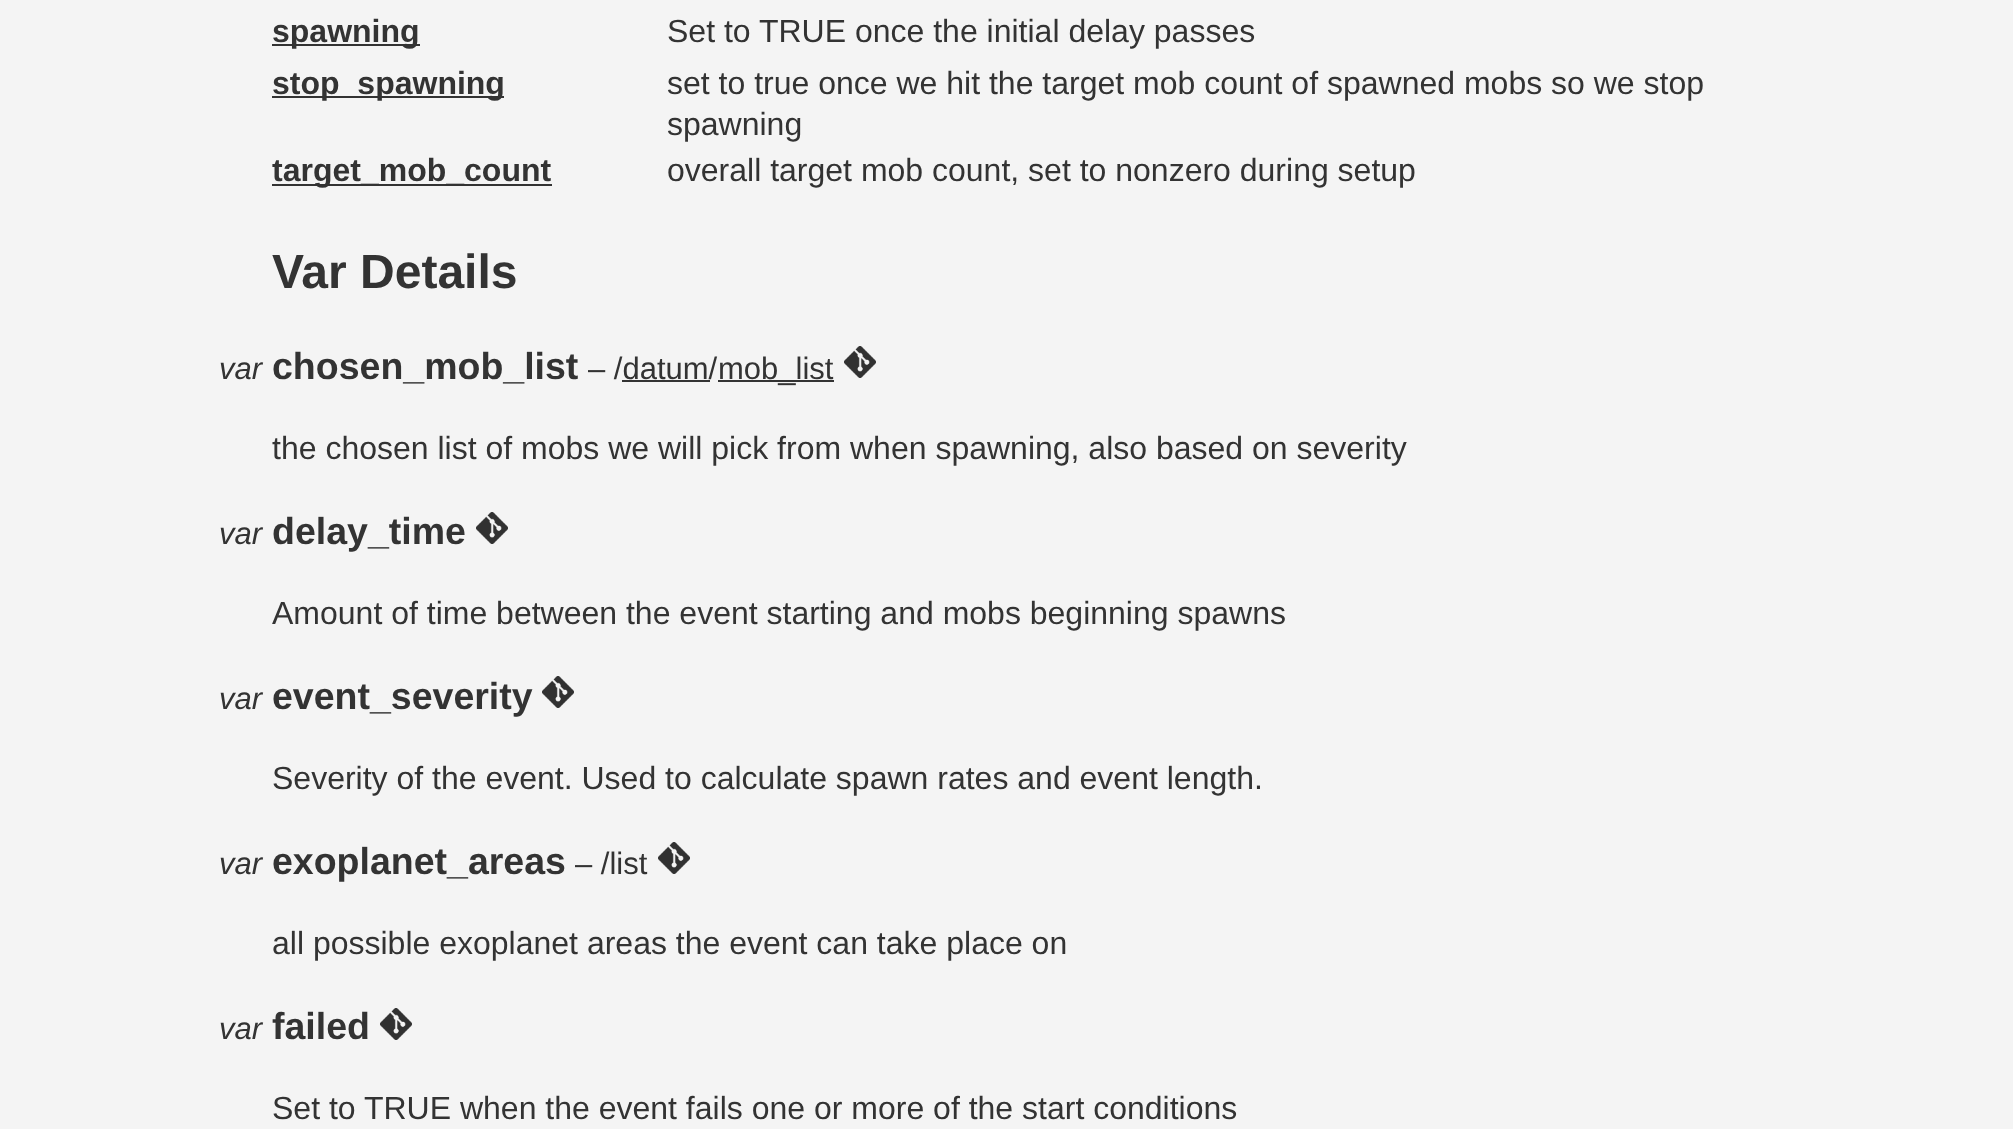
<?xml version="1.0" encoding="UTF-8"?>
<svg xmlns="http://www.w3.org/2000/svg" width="2013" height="1129">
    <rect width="100%" height="100%" fill="#F4F4F4"/>
    <rect x="272" y="44" width="148" height="2" fill="#333333"/>
    <text x="272" y="42" font-family="Liberation Sans" font-size="32" font-weight="700" fill="#333333">spawning</text>
    <text x="667" y="42" font-family="Liberation Sans" font-size="32" fill="#333333">Set to TRUE once the initial delay passes</text>
    <rect x="272" y="96" width="232" height="2" fill="#333333"/>
    <text x="272" y="94" font-family="Liberation Sans" font-size="32" font-weight="700" fill="#333333">stop_spawning</text>
    <text font-family="Liberation Sans" font-size="32" fill="#333333">
        <tspan x="667" y="94">set to true once we hit the target mob count of spawned mobs so we stop</tspan>
        <tspan x="667" y="135">spawning</tspan>
    </text>
    <rect x="272" y="184" width="280" height="2" fill="#333333"/>
    <text x="272" y="181" font-family="Liberation Sans" font-size="32" font-weight="700" fill="#333333">target_mob_count</text>
    <text x="667" y="181" font-family="Liberation Sans" font-size="32" fill="#333333">overall target mob count, set to nonzero during setup</text>
    <text x="272" y="288" font-family="Liberation Sans" font-size="48" font-weight="700" fill="#333333">Var Details</text>
    <text x="219" y="379" font-family="Liberation Sans" font-size="31" font-style="italic" fill="#333333">var</text>
    <text x="272" y="379" font-family="Liberation Sans" font-size="37.5" font-weight="700" fill="#333333">chosen_mob_list</text>
    <text x="588" y="379" font-family="Liberation Sans" font-size="31" fill="#333333">– /datum/</text>
    <rect x="622" y="380" width="88" height="2" fill="#333333"/>
    <rect x="718" y="380" width="116" height="2" fill="#333333"/>
    <text x="718" y="379" font-family="Liberation Sans" font-size="31" fill="#333333">mob_list</text>
    <image x="844" y="346" width="32" height="32" href="img_01.png"/>
    <text x="272" y="459" font-family="Liberation Sans" font-size="32" fill="#333333">the chosen list of mobs we will pick from when spawning, also based on severity</text>
    <text x="219" y="544" font-family="Liberation Sans" font-size="31" font-style="italic" fill="#333333">var</text>
    <text x="272" y="544" font-family="Liberation Sans" font-size="37.5" font-weight="700" fill="#333333">delay_time</text>
    <image x="476" y="512" width="32" height="32" href="img_02.png"/>
    <text x="272" y="624" font-family="Liberation Sans" font-size="32" fill="#333333">Amount of time between the event starting and mobs beginning spawns</text>
    <text x="219" y="709" font-family="Liberation Sans" font-size="31" font-style="italic" fill="#333333">var</text>
    <text x="272" y="709" font-family="Liberation Sans" font-size="37.5" font-weight="700" fill="#333333">event_severity</text>
    <image x="542" y="676" width="32" height="32" href="img_03.png"/>
    <text x="272" y="789" font-family="Liberation Sans" font-size="32" fill="#333333">Severity of the event. Used to calculate spawn rates and event length.</text>
    <text x="219" y="874" font-family="Liberation Sans" font-size="31" font-style="italic" fill="#333333">var</text>
    <text x="272" y="874" font-family="Liberation Sans" font-size="37.5" font-weight="700" fill="#333333">exoplanet_areas</text>
    <text x="575" y="874" font-family="Liberation Sans" font-size="31" fill="#333333">– /list</text>
    <image x="658" y="842" width="32" height="32" href="img_04.png"/>
    <text x="272" y="954" font-family="Liberation Sans" font-size="32" fill="#333333">all possible exoplanet areas the event can take place on</text>
    <text x="219" y="1039" font-family="Liberation Sans" font-size="31" font-style="italic" fill="#333333">var</text>
    <text x="272" y="1039" font-family="Liberation Sans" font-size="37.5" font-weight="700" fill="#333333">failed</text>
    <image x="380" y="1008" width="32" height="32" href="img_05.png"/>
    <text x="272" y="1119" font-family="Liberation Sans" font-size="32" fill="#333333">Set to TRUE when the event fails one or more of the start conditions</text>
</svg>
